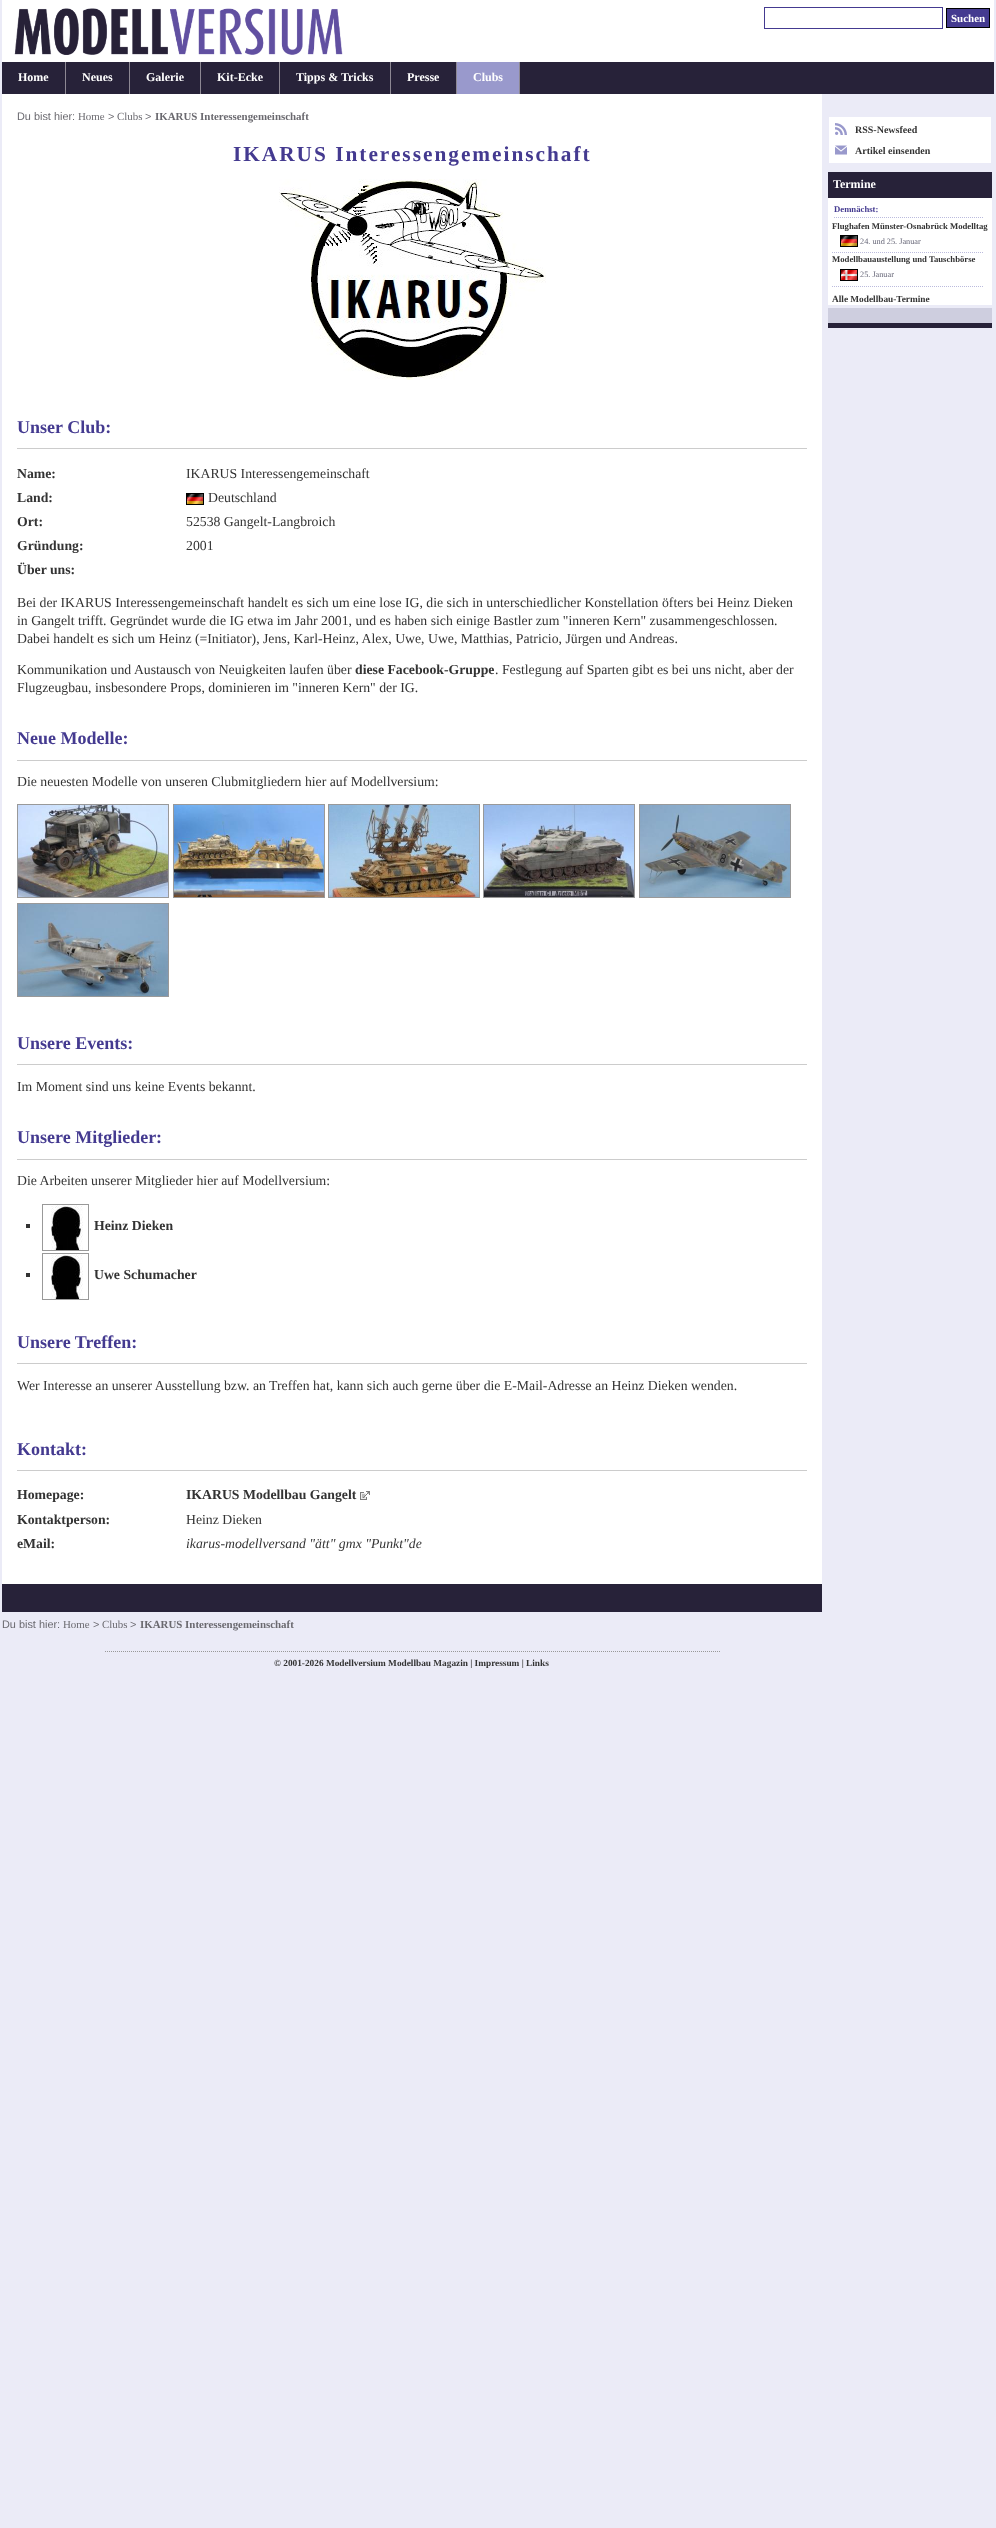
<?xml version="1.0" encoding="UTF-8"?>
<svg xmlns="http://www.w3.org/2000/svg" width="996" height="2528">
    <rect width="100%" height="100%" fill="#EBEBF7"/>
    <rect x="2" y="0" width="992" height="62" fill="#FFFFFF"/>
    <image x="14" y="8" width="329" height="47" href="img_01.png"/>
    <rect x="764.5" y="7.5" width="178" height="21" fill="none" stroke="#443A90"/>
    <rect x="946.5" y="8.5" width="43" height="19" fill="#443A90" stroke="#000000"/>
    <text x="951" y="22" font-family="Liberation Serif" font-size="11" font-weight="700" fill="#FFFFFF">Suchen</text>
    <rect x="2" y="62" width="992" height="32" fill="#272239"/>
    <rect x="65" y="62" width="1" height="32" fill="#8D8893"/>
    <text x="18" y="81" font-family="Liberation Serif" font-size="12" font-weight="700" fill="#FFFFFF">Home</text>
    <rect x="129" y="62" width="1" height="32" fill="#8D8893"/>
    <text x="82" y="81" font-family="Liberation Serif" font-size="12" font-weight="700" fill="#FFFFFF">Neues</text>
    <rect x="200" y="62" width="1" height="32" fill="#8D8893"/>
    <text x="146" y="81" font-family="Liberation Serif" font-size="12" font-weight="700" fill="#FFFFFF">Galerie</text>
    <rect x="279" y="62" width="1" height="32" fill="#8D8893"/>
    <text x="217" y="81" font-family="Liberation Serif" font-size="12" font-weight="700" fill="#FFFFFF">Kit-Ecke</text>
    <rect x="390" y="62" width="1" height="32" fill="#8D8893"/>
    <text x="296" y="81" font-family="Liberation Serif" font-size="12" font-weight="700" fill="#FFFFFF">Tipps &amp; Tricks</text>
    <rect x="456" y="62" width="1" height="32" fill="#8D8893"/>
    <text x="407" y="81" font-family="Liberation Serif" font-size="12" font-weight="700" fill="#FFFFFF">Presse</text>
    <rect x="457" y="62" width="62" height="32" fill="#9999CC"/>
    <rect x="519" y="62" width="1" height="32" fill="#8D8893"/>
    <text x="473" y="81" font-family="Liberation Serif" font-size="12" font-weight="700" fill="#FFFFFF">Clubs</text>
    <rect x="2" y="94" width="820" height="1490" fill="#FFFFFF"/>
    <rect x="2" y="1584" width="820" height="28" fill="#272239"/>
    <text x="17" y="120" font-family="Liberation Sans" font-size="10.9" fill="#6A696F">Du bist hier:</text>
    <text x="78" y="120" font-family="Liberation Serif" font-size="10.9" fill="#6A696F">Home</text>
    <text x="108" y="120" font-family="Liberation Sans" font-size="10.9" fill="#6A696F">&gt;</text>
    <text x="117" y="120" font-family="Liberation Serif" font-size="10.9" fill="#6A696F">Clubs</text>
    <text x="145" y="120" font-family="Liberation Sans" font-size="10.9" fill="#6A696F">&gt;</text>
    <text x="155" y="120" font-family="Liberation Serif" font-size="10.9" font-weight="700" fill="#6A696F">IKARUS Interessengemeinschaft</text>
    <text x="233" y="161" font-family="Liberation Serif" font-size="21.3" font-weight="700" letter-spacing="2" fill="#443A90">IKARUS Interessengemeinschaft</text>
    <image x="279" y="179" width="267" height="201" href="img_02.png"/>
    <rect x="17" y="448" width="790" height="1" fill="#CCCCCC"/>
    <text x="17" y="433" font-family="Liberation Serif" font-size="18" font-weight="700" fill="#443A90">Unser Club:</text>
    <text x="17" y="478" font-family="Liberation Serif" font-size="13.75" font-weight="700" fill="#333333">Name:</text>
    <text x="186" y="478" font-family="Liberation Serif" font-size="13.75" fill="#333333">IKARUS Interessengemeinschaft</text>
    <text x="17" y="502" font-family="Liberation Serif" font-size="13.75" font-weight="700" fill="#333333">Land:</text>
    <image x="186" y="493" width="18" height="12" href="img_03.png"/>
    <text x="208" y="502" font-family="Liberation Serif" font-size="13.75" fill="#333333">Deutschland</text>
    <text x="17" y="526" font-family="Liberation Serif" font-size="13.75" font-weight="700" fill="#333333">Ort:</text>
    <text x="186" y="526" font-family="Liberation Serif" font-size="13.75" fill="#333333">52538 Gangelt-Langbroich</text>
    <text x="17" y="550" font-family="Liberation Serif" font-size="13.75" font-weight="700" fill="#333333">Gründung:</text>
    <text x="186" y="550" font-family="Liberation Serif" font-size="13.75" fill="#333333">2001</text>
    <text x="17" y="574" font-family="Liberation Serif" font-size="13.75" font-weight="700" fill="#333333">Über uns:</text>
    <text font-family="Liberation Serif" font-size="13.75" fill="#333333">
        <tspan x="17" y="607">Bei der IKARUS Interessengemeinschaft handelt es sich um eine lose IG, die sich in unterschiedlicher Konstellation öfters bei Heinz Dieken</tspan>
        <tspan x="17" y="625">in Gangelt trifft. Gegründet wurde die IG etwa im Jahr 2001, und es haben sich einige Bastler zum "inneren Kern" zusammengeschlossen.</tspan>
        <tspan x="17" y="643">Dabei handelt es sich um Heinz (=Initiator), Jens, Karl-Heinz, Alex, Uwe, Uwe, Matthias, Patricio, Jürgen und Andreas.</tspan>
    </text>
    <text x="17" y="674" font-family="Liberation Serif" font-size="13.75" fill="#333333">Kommunikation und Austausch von Neuigkeiten laufen über</text>
    <text x="355" y="674" font-family="Liberation Serif" font-size="13.75" font-weight="700" fill="#333333">diese Facebook-Gruppe</text>
    <text x="495" y="674" font-family="Liberation Serif" font-size="13.75" fill="#333333">. Festlegung auf Sparten gibt es bei uns nicht, aber der</text>
    <text x="17" y="692" font-family="Liberation Serif" font-size="13.75" fill="#333333">Flugzeugbau, insbesondere Props, dominieren im "inneren Kern" der IG.</text>
    <rect x="17" y="760" width="790" height="1" fill="#CCCCCC"/>
    <text x="17" y="744" font-family="Liberation Serif" font-size="18" font-weight="700" fill="#443A90">Neue Modelle:</text>
    <text x="17" y="786" font-family="Liberation Serif" font-size="13.75" fill="#333333">Die neuesten Modelle von unseren Clubmitgliedern hier auf Modellversium:</text>
    <rect x="17.5" y="804.5" width="151" height="93" fill="none" stroke="#999999"/>
    <rect x="173.5" y="804.5" width="151" height="93" fill="none" stroke="#999999"/>
    <rect x="328.5" y="804.5" width="151" height="93" fill="none" stroke="#999999"/>
    <rect x="483.5" y="804.5" width="151" height="93" fill="none" stroke="#999999"/>
    <rect x="639.5" y="804.5" width="151" height="93" fill="none" stroke="#999999"/>
    <image x="18" y="805" width="150" height="92" href="img_04.png"/>
    <image x="174" y="805" width="150" height="92" href="img_05.png"/>
    <image x="329" y="805" width="150" height="92" href="img_06.png"/>
    <image x="484" y="805" width="150" height="92" href="img_07.png"/>
    <image x="640" y="805" width="150" height="92" href="img_08.png"/>
    <rect x="17.5" y="903.5" width="151" height="93" fill="none" stroke="#999999"/>
    <image x="18" y="904" width="150" height="92" href="img_09.png"/>
    <rect x="17" y="1064" width="790" height="1" fill="#CCCCCC"/>
    <text x="17" y="1049" font-family="Liberation Serif" font-size="18" font-weight="700" fill="#443A90">Unsere Events:</text>
    <text x="17" y="1091" font-family="Liberation Serif" font-size="13.75" fill="#333333">Im Moment sind uns keine Events bekannt.</text>
    <rect x="17" y="1159" width="790" height="1" fill="#CCCCCC"/>
    <text x="17" y="1143" font-family="Liberation Serif" font-size="18" font-weight="700" fill="#443A90">Unsere Mitglieder:</text>
    <text x="17" y="1185" font-family="Liberation Serif" font-size="13.75" fill="#333333">Die Arbeiten unserer Mitglieder hier auf Modellversium:</text>
    <rect x="42.5" y="1204.5" width="46" height="46" fill="none" stroke="#999999"/>
    <rect x="26" y="1224" width="4" height="4" fill="#333333"/>
    <image x="51" y="1205" width="32" height="45" href="img_10.png"/>
    <text x="94" y="1230" font-family="Liberation Serif" font-size="13.75" font-weight="700" fill="#333333">Heinz Dieken</text>
    <rect x="42.5" y="1253.5" width="46" height="46" fill="none" stroke="#999999"/>
    <rect x="26" y="1273" width="4" height="4" fill="#333333"/>
    <image x="51" y="1254" width="32" height="45" href="img_10.png"/>
    <text x="94" y="1279" font-family="Liberation Serif" font-size="13.75" font-weight="700" fill="#333333">Uwe Schumacher</text>
    <rect x="17" y="1363" width="790" height="1" fill="#CCCCCC"/>
    <text x="17" y="1348" font-family="Liberation Serif" font-size="18" font-weight="700" fill="#443A90">Unsere Treffen:</text>
    <text x="17" y="1390" font-family="Liberation Serif" font-size="13.75" fill="#333333">Wer Interesse an unserer Ausstellung bzw. an Treffen hat, kann sich auch gerne über die E-Mail-Adresse an Heinz Dieken wenden.</text>
    <rect x="17" y="1470" width="790" height="1" fill="#CCCCCC"/>
    <text x="17" y="1455" font-family="Liberation Serif" font-size="18" font-weight="700" fill="#443A90">Kontakt:</text>
    <text x="17" y="1499" font-family="Liberation Serif" font-size="13.75" font-weight="700" fill="#333333">Homepage:</text>
    <text x="186" y="1499" font-family="Liberation Serif" font-size="13.75" font-weight="700" fill="#333333">IKARUS Modellbau Gangelt</text>
    <image x="360" y="1491" width="10" height="9" href="img_11.png"/>
    <text x="17" y="1524" font-family="Liberation Serif" font-size="13.75" font-weight="700" fill="#333333">Kontaktperson:</text>
    <text x="186" y="1524" font-family="Liberation Serif" font-size="13.75" fill="#333333">Heinz Dieken</text>
    <text x="17" y="1548" font-family="Liberation Serif" font-size="13.75" font-weight="700" fill="#333333">eMail:</text>
    <text x="186" y="1548" font-family="Liberation Serif" font-size="13.75" font-style="italic" fill="#333333">ikarus-modellversand "ätt" gmx "Punkt"de</text>
    <text x="2" y="1628" font-family="Liberation Sans" font-size="10.9" fill="#6A696F">Du bist hier:</text>
    <text x="63" y="1628" font-family="Liberation Serif" font-size="10.9" fill="#6A696F">Home</text>
    <text x="93" y="1628" font-family="Liberation Sans" font-size="10.9" fill="#6A696F">&gt;</text>
    <text x="102" y="1628" font-family="Liberation Serif" font-size="10.9" fill="#6A696F">Clubs</text>
    <text x="130" y="1628" font-family="Liberation Sans" font-size="10.9" fill="#6A696F">&gt;</text>
    <text x="140" y="1628" font-family="Liberation Serif" font-size="10.9" font-weight="700" fill="#6A696F">IKARUS Interessengemeinschaft</text>
    <path d="M 105 1651.5 H 720" fill="none" stroke="#999999" stroke-dasharray="1 1"/>
    <text x="274" y="1666" font-family="Liberation Serif" font-size="9.3" font-weight="700" fill="#333333">© 2001-2026 Modellversium Modellbau Magazin | Impressum | Links</text>
    <rect x="829" y="117" width="162" height="46" fill="#FFFFFF"/>
    <image x="835" y="123" width="12" height="12" href="img_12.png"/>
    <text x="855" y="133" font-family="Liberation Serif" font-size="10" font-weight="700" fill="#333333">RSS-Newsfeed</text>
    <image x="835" y="145" width="12" height="10" href="img_13.png"/>
    <text x="855" y="154" font-family="Liberation Serif" font-size="10" font-weight="700" fill="#333333">Artikel einsenden</text>
    <rect x="828" y="198" width="164" height="107" fill="#FFFFFF"/>
    <rect x="828" y="172" width="164" height="26" fill="#272239"/>
    <text x="833" y="188" font-family="Liberation Serif" font-size="12" font-weight="700" fill="#FFFFFF">Termine</text>
    <path d="M 834 217.5 H 984" fill="none" stroke="#BBBBDD" stroke-dasharray="1 1"/>
    <text x="834" y="212" font-family="Liberation Serif" font-size="8.7" font-weight="700" fill="#443A90">Demnächst:</text>
    <text x="832" y="229" font-family="Liberation Serif" font-size="8.7" font-weight="700" fill="#333333">Flughafen Münster-Osnabrück Modelltag</text>
    <path d="M 832 252.5 H 984" fill="none" stroke="#BBBBDD" stroke-dasharray="1 1"/>
    <image x="840" y="235" width="18" height="12" href="img_03.png"/>
    <text x="860" y="244" font-family="Liberation Serif" font-size="8.25" fill="#666677">24. und 25. Januar</text>
    <text x="832" y="262" font-family="Liberation Serif" font-size="8.7" font-weight="700" fill="#333333">Modellbauaustellung und Tauschbörse</text>
    <path d="M 832 286.5 H 984" fill="none" stroke="#BBBBDD" stroke-dasharray="1 1"/>
    <image x="840" y="269" width="18" height="12" href="img_14.png"/>
    <text x="860" y="277" font-family="Liberation Serif" font-size="8.25" fill="#666677">25. Januar</text>
    <text x="832" y="302" font-family="Liberation Serif" font-size="9.3" font-weight="700" fill="#333333">Alle Modellbau-Termine</text>
    <rect x="828" y="308" width="164" height="15" fill="#CECEDF"/>
    <rect x="828" y="323" width="164" height="5" fill="#272239"/>
</svg>
